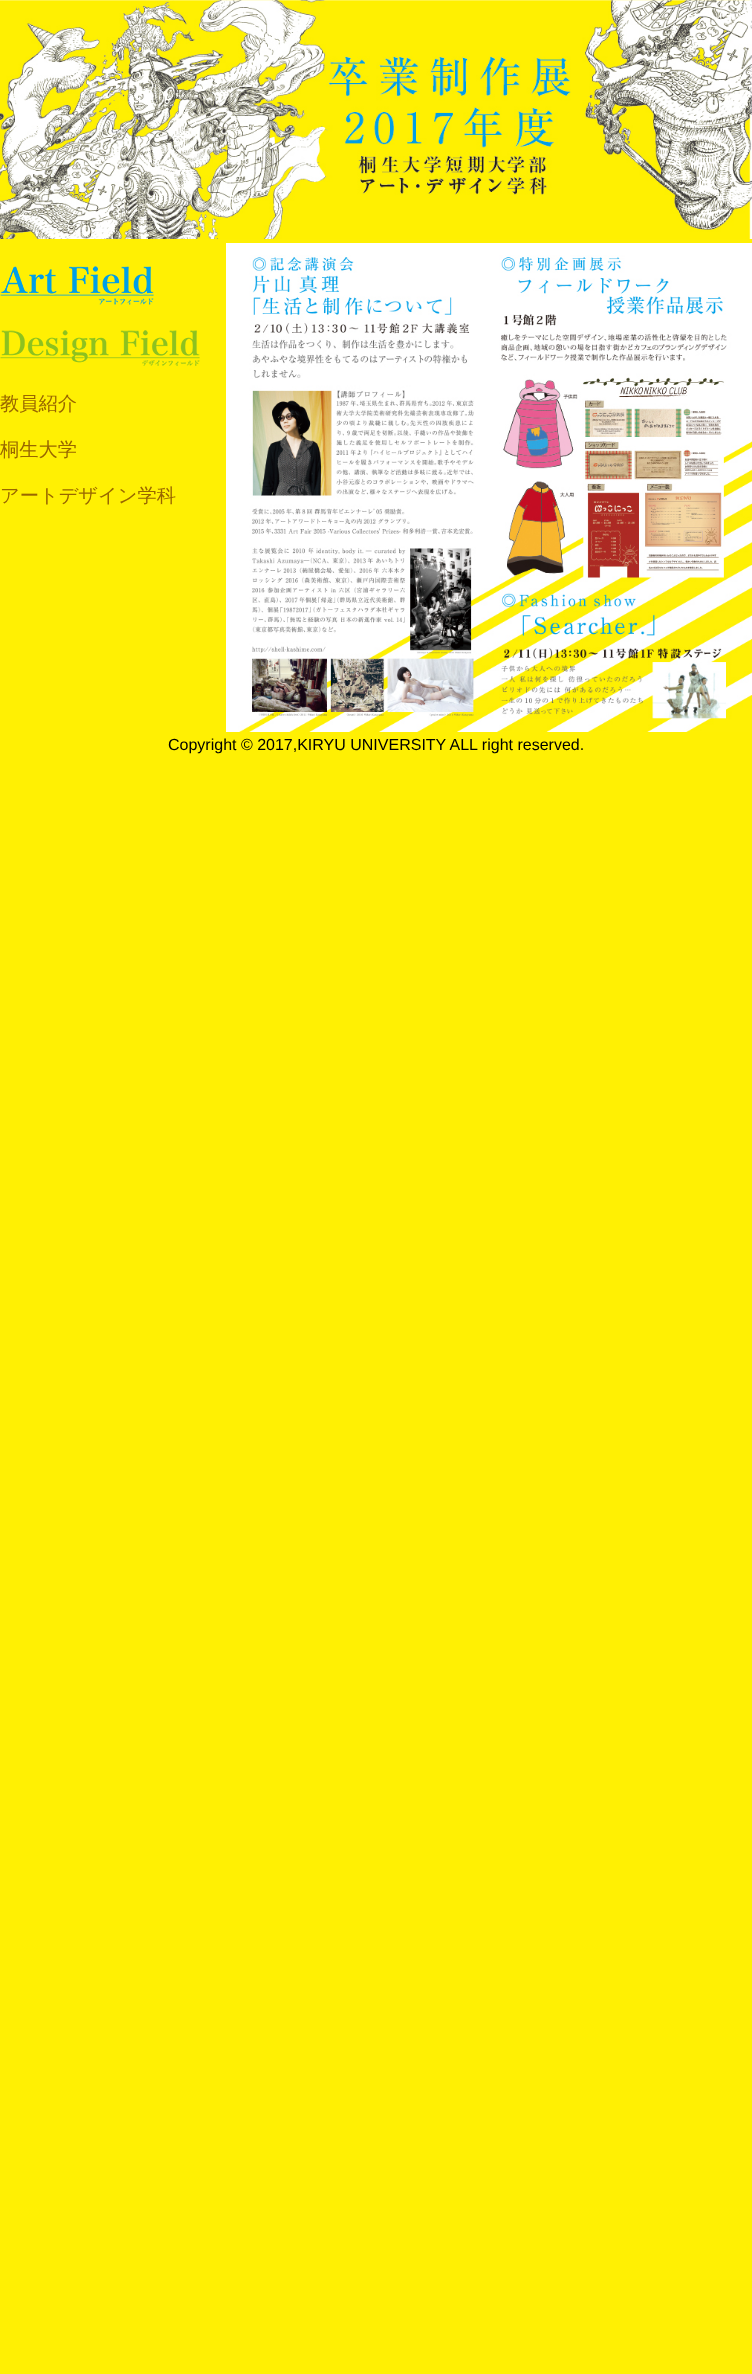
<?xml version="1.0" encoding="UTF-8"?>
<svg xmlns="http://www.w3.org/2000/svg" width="752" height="2374">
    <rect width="100%" height="100%" fill="#FFF003"/>
    <image x="0" y="0" width="752" height="239" href="img_01.png"/>
    <image x="0" y="266" width="154" height="39" href="img_02.png"/>
    <image x="0" y="330" width="200" height="36" href="img_03.png"/>
    <text x="0" y="410" font-family="WenQuanYi Zen Hei" font-size="19.25" font-weight="500" fill="#996600">教員紹介</text>
    <text x="0" y="456" font-family="WenQuanYi Zen Hei" font-size="19.25" font-weight="500" fill="#996600">桐生大学</text>
    <text x="0" y="502" font-family="WenQuanYi Zen Hei" font-size="19.25" font-weight="500" fill="#996600">アートデザイン学科</text>
    <image x="226" y="243" width="526" height="489" href="img_04.png"/>
    <text x="168" y="750" font-family="Liberation Sans" font-size="16" fill="#000000">Copyright © 2017,KIRYU UNIVERSITY ALL right reserved.</text>
</svg>
